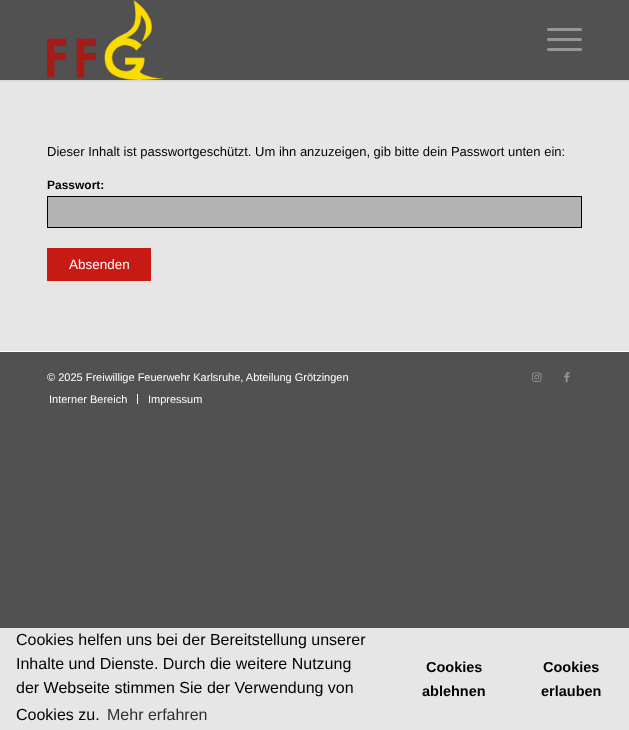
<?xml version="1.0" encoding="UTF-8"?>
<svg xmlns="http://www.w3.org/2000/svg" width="629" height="730">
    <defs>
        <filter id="blur1" x="-50%" y="-200%" width="200%" height="500%"><feGaussianBlur stdDeviation="1"/></filter>
    </defs>
    <rect width="100%" height="100%" fill="#515151"/>
    <rect x="0" y="80" width="629" height="271" fill="#E6E6E6"/>
    <rect x="-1" y="-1" width="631" height="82" fill="#000000" fill-opacity="0.1" filter="url(#blur1)"/>
    <rect x="0" y="0" width="629" height="80" fill="#515151"/>
    <image x="47" y="0" width="117" height="80" href="img_01.png"/>
    <rect x="547" y="38" width="35" height="3" rx="1.5" fill="#969696"/>
    <rect x="547" y="28" width="35" height="3" rx="1.5" fill="#969696"/>
    <rect x="547" y="48" width="35" height="3" rx="1.5" fill="#969696"/>
    <text x="47" y="156" font-family="Liberation Sans" font-size="13" fill="#000000">Dieser Inhalt ist passwortgeschützt. Um ihn anzuzeigen, gib bitte dein Passwort unten ein:</text>
    <text x="47" y="189" font-family="Liberation Sans" font-size="12" font-weight="700" fill="#000000">Passwort:</text>
    <rect x="47.5" y="196.5" width="534" height="31" fill="#B3B3B3" stroke="#000000"/>
    <rect x="47" y="248" width="104" height="33" fill="#C81A14"/>
    <text x="69" y="269" font-family="Liberation Sans" font-size="13.5" fill="#FFFFFF">Absenden</text>
    <rect x="0" y="351" width="629" height="1" fill="#FFFFFF"/>
    <text x="47" y="381" font-family="Liberation Sans" font-size="11" fill="#FFFFFF">© 2025 Freiwillige Feuerwehr Karlsruhe, Abteilung Grötzingen</text>
    <image x="532" y="372" width="10" height="10" href="img_02.png"/>
    <image x="564" y="372" width="6" height="11" href="img_03.png"/>
    <text x="49" y="403" font-family="Liberation Sans" font-size="11" fill="#FFFFFF">Interner Bereich</text>
    <rect x="137" y="394" width="1" height="10" fill="#FFFFFF"/>
    <text x="148" y="403" font-family="Liberation Sans" font-size="11" fill="#FFFFFF">Impressum</text>
    <rect x="0" y="628" width="629" height="102" fill="#E6E6E6"/>
    <text font-family="Liberation Sans" font-size="16" fill="#000000">
        <tspan x="16" y="645">Cookies helfen uns bei der Bereitstellung unserer</tspan>
        <tspan x="16" y="669">Inhalte und Dienste. Durch die weitere Nutzung</tspan>
        <tspan x="16" y="693">der Webseite stimmen Sie der Verwendung von</tspan>
        <tspan x="16" y="720">Cookies zu.</tspan>
    </text>
    <text x="107" y="720" font-family="Liberation Sans" font-size="16" fill="#2E2E2E">Mehr erfahren</text>
    <text x="426" y="672" font-family="Liberation Sans" font-size="14.5" font-weight="700" fill="#000000">Cookies</text>
    <text x="422" y="696" font-family="Liberation Sans" font-size="14.5" font-weight="700" fill="#000000">ablehnen</text>
    <text x="543" y="672" font-family="Liberation Sans" font-size="14.5" font-weight="700" fill="#000000">Cookies</text>
    <text x="541" y="696" font-family="Liberation Sans" font-size="14.5" font-weight="700" fill="#000000">erlauben</text>
</svg>
